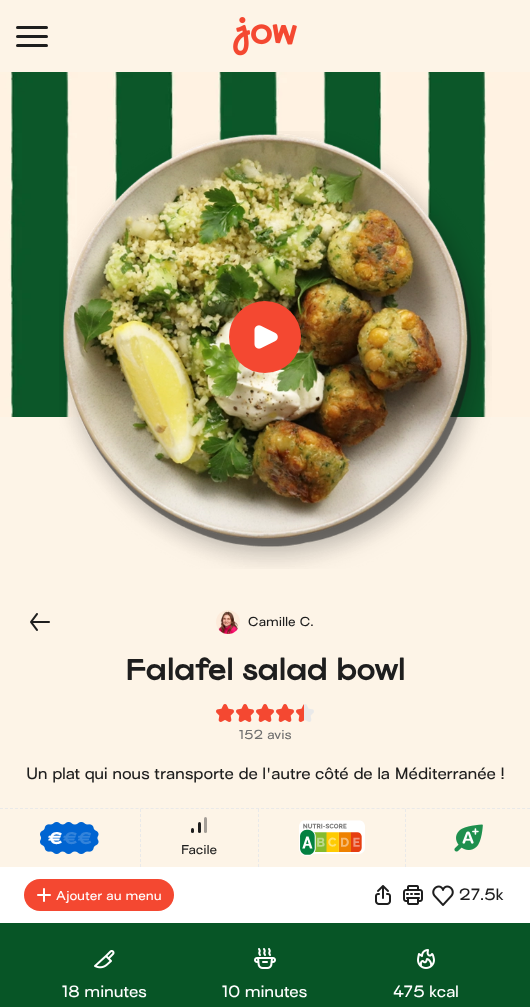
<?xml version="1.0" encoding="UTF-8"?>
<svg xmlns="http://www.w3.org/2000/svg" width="530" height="1007">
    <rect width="100%" height="100%" fill="#FDF4E7"/>
    <rect x="16" y="26" width="32" height="3" rx="1.5" fill="#1E1E1E"/>
    <rect x="16" y="35" width="32" height="3" rx="1.5" fill="#1E1E1E"/>
    <rect x="16" y="44" width="32" height="3" rx="1.5" fill="#1E1E1E"/>
    <image x="233" y="17" width="64" height="39" href="img_01.png"/>
    <image x="0" y="72" width="530" height="345" href="img_02.png"/>
    <image x="59" y="131" width="433" height="438" href="img_03.png"/>
    <circle cx="265" cy="337" r="36" fill="#F44831"/>
    <image x="254" y="325" width="24" height="24" href="img_04.png"/>
    <image x="30" y="613" width="20" height="18" href="img_05.png"/>
    <image x="216" y="610" width="24" height="24" href="img_06.png"/>
    <text x="248" y="626" font-family="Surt" font-size="12" font-weight="500" letter-spacing="0.4" fill="#1E1E1E">Camille C.</text>
    <text x="125" y="680" font-family="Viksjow" font-size="30" letter-spacing="-1" fill="#1E1E1E">Falafel salad bowl</text>
    <image x="216" y="704" width="18" height="18" href="img_07.png"/>
    <image x="236" y="704" width="18" height="18" href="img_07.png"/>
    <image x="256" y="704" width="18" height="18" href="img_07.png"/>
    <image x="276" y="704" width="18" height="18" href="img_07.png"/>
    <image x="296" y="704" width="18" height="18" href="img_08.png"/>
    <text x="239" y="739" font-family="Surt" font-size="12" font-weight="500" letter-spacing="0.4" fill="#6F6F6F">152 avis</text>
    <text x="26" y="779" font-family="Surt" font-size="15" font-weight="500" letter-spacing="0.25" fill="#1E1E1E">Un plat qui nous transporte de l'autre côté de la Méditerranée !</text>
    <path d="M 0 808.5 H 530" fill="none" stroke="#E9E9E9" stroke-dasharray="3 2.02"/>
    <path d="M 140.5 809 V 867" fill="none" stroke="#E9E9E9" stroke-dasharray="3 2"/>
    <image x="40" y="822" width="59" height="32" href="img_09.png"/>
    <text x="48" y="844" font-family="Viksjow" font-size="17" fill="#FFFFFF">€</text>
    <text x="63" y="844" font-family="Viksjow" font-size="17" fill="#3383DA">€€</text>
    <path d="M 405.5 809 V 867" fill="none" stroke="#E9E9E9" stroke-dasharray="3 2"/>
    <image x="299" y="820" width="66" height="36" href="img_10.png"/>
    <image x="454" y="824" width="29" height="28" href="img_11.png"/>
    <path d="M 258.5 809 V 867" fill="none" stroke="#E9E9E9" stroke-dasharray="3 2"/>
    <rect x="191" y="828" width="3" height="5" rx="1.5" fill="#1E1E1E"/>
    <rect x="198" y="822" width="3" height="11" rx="1.5" fill="#1E1E1E"/>
    <rect x="204" y="817" width="3" height="16" rx="1.5" fill="#A49E97"/>
    <text x="181" y="854" font-family="Surt" font-size="12" font-weight="500" letter-spacing="0.4" fill="#1E1E1E">Facile</text>
    <rect x="0" y="867" width="530" height="56" fill="#FFFFFF"/>
    <rect x="24" y="879" width="150" height="32" rx="16" fill="#F44831"/>
    <image x="37" y="888" width="14" height="14" href="img_12.png"/>
    <text x="56" y="900" font-family="Surt" font-size="12" font-weight="500" letter-spacing="0.4" fill="#FFFFFF">Ajouter au menu</text>
    <image x="375" y="885" width="16" height="20" href="img_13.png"/>
    <image x="403" y="885" width="20" height="20" href="img_14.png"/>
    <image x="432" y="885" width="22" height="21" href="img_15.png"/>
    <text x="459" y="900" font-family="Surt" font-size="15" font-weight="500" letter-spacing="0.25" fill="#1E1E1E">27.5k</text>
    <rect x="0" y="923" width="530" height="84" fill="#075526"/>
    <image x="94" y="950" width="21" height="19" href="img_16.png"/>
    <text x="62" y="997" font-family="Surt" font-size="15" font-weight="500" letter-spacing="0.25" fill="#FFFFFF">18 minutes</text>
    <image x="254" y="948" width="22" height="21" href="img_17.png"/>
    <text x="222" y="997" font-family="Surt" font-size="15" font-weight="500" letter-spacing="0.25" fill="#FFFFFF">10 minutes</text>
    <image x="417" y="949" width="18" height="20" href="img_18.png"/>
    <text x="393" y="997" font-family="Surt" font-size="15" font-weight="500" letter-spacing="0.25" fill="#FFFFFF">475 kcal</text>
</svg>
